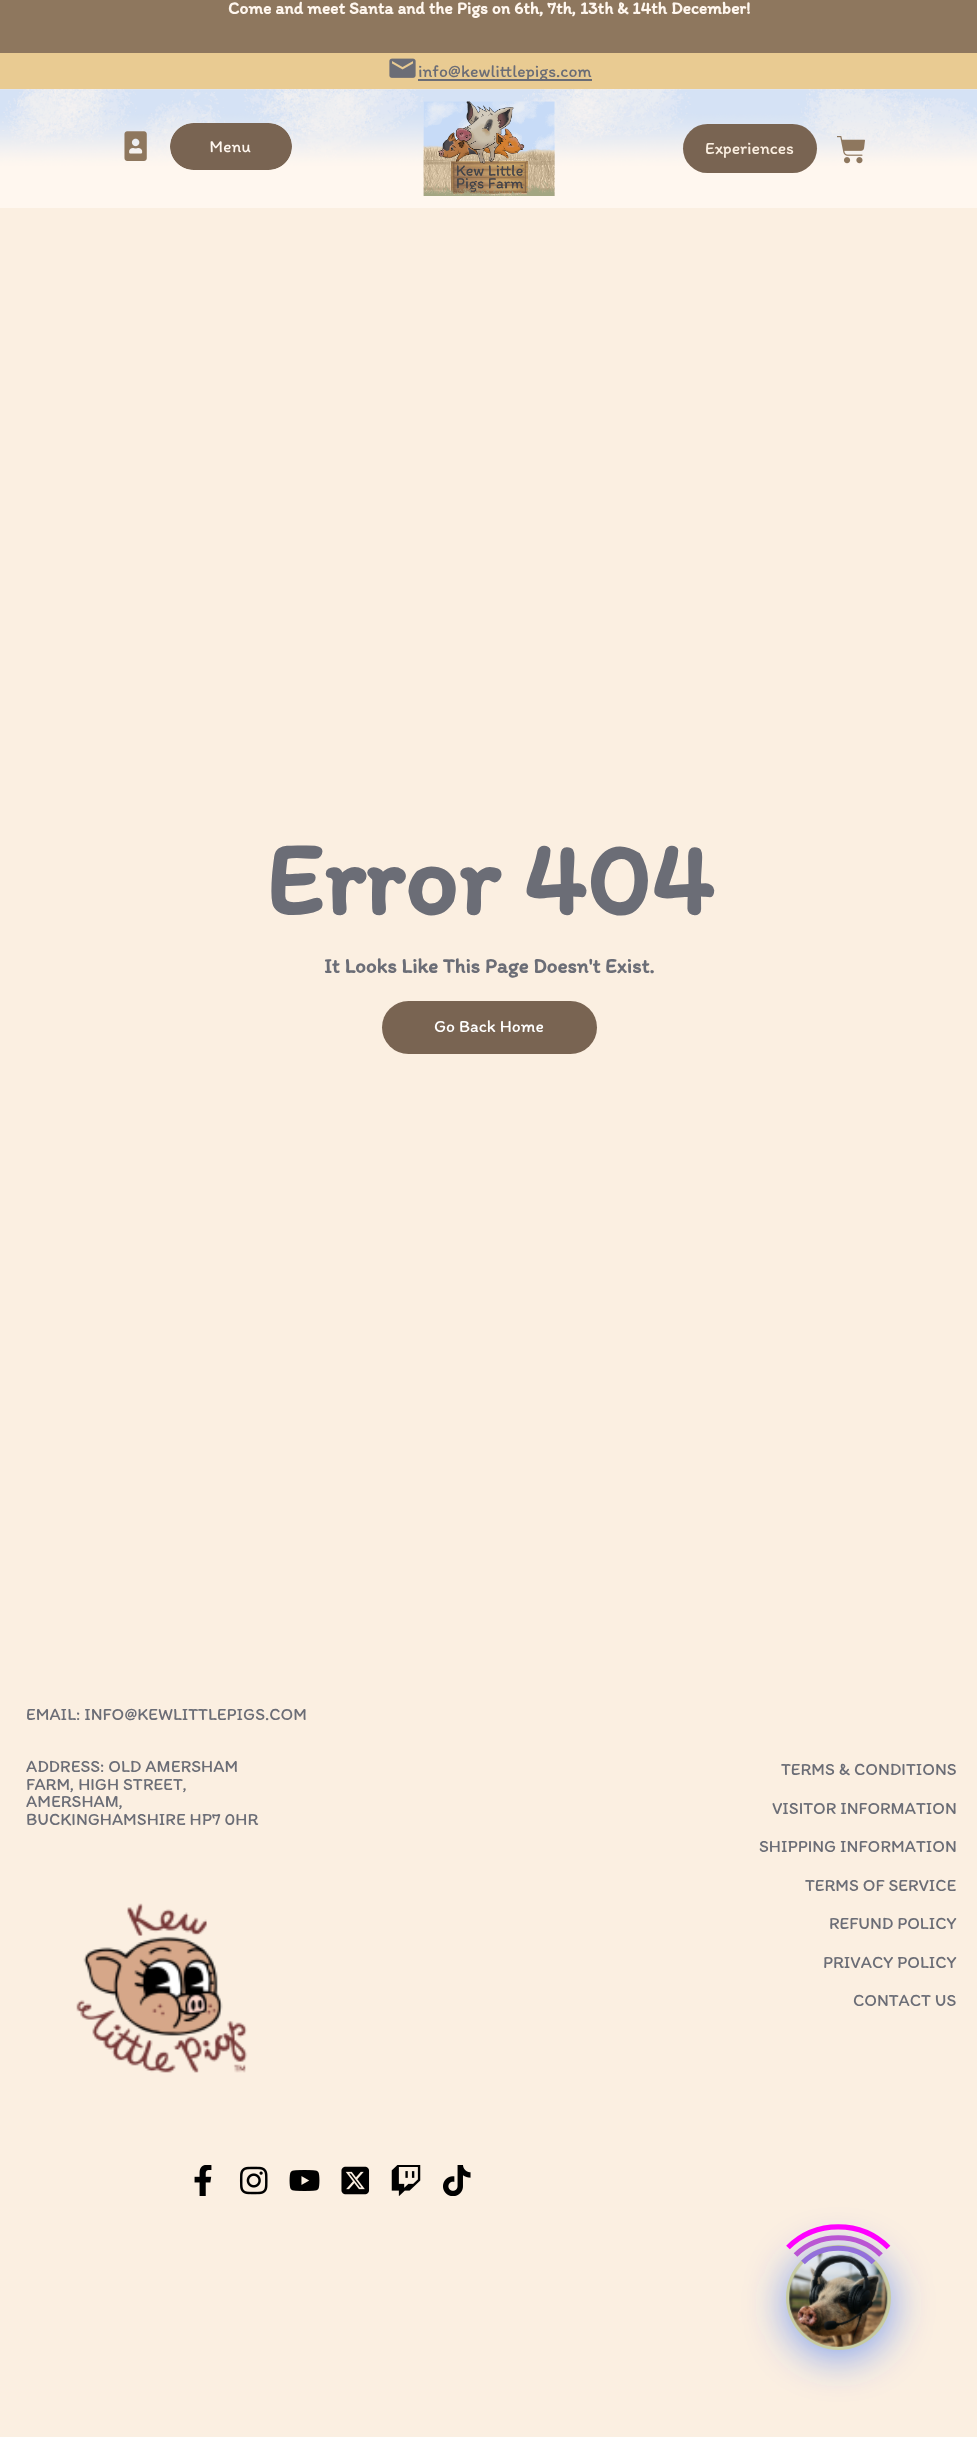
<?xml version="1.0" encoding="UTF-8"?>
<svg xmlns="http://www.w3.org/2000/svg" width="977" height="2437">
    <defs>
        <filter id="blur1" x="-50%" y="-200%" width="200%" height="500%"><feGaussianBlur stdDeviation="21"/></filter>
    </defs>
    <rect width="100%" height="100%" fill="#FBEFE1"/>
    <rect x="0" y="0" width="977" height="53" fill="#8E775E"/>
    <text x="228" y="14" font-family="Itim" font-size="17.5" font-weight="700" fill="#FFF7EF">Come and meet Santa and the Pigs on 6th, 7th, 13th &amp; 14th December!</text>
    <rect x="0" y="53" width="977" height="36" fill="#E9CB92"/>
    <image x="389" y="58" width="27" height="20" href="img_01.png"/>
    <rect x="418" y="79" width="174" height="2" fill="#6B6D76"/>
    <text x="418" y="77" font-family="Itim" font-size="17.5" fill="#6B6D76">info@kewlittlepigs.com</text>
    <image x="0" y="89" width="977" height="119" href="img_02.png"/>
    <image x="124" y="131" width="23" height="30" href="img_03.png"/>
    <image x="170" y="123" width="122" height="47" href="img_04.png"/>
    <image x="423" y="101" width="132" height="95" href="img_05.png"/>
    <rect x="683" y="124" width="134" height="49" rx="24.5" fill="#796452"/>
    <text x="705" y="154" font-family="Itim" font-size="17.5" fill="#FBEFE1">Experiences</text>
    <image x="837" y="136" width="28" height="28" href="img_06.png"/>
    <text x="265" y="915" font-family="Itim" font-size="105" font-weight="700" fill="#6B6D76">Error 404</text>
    <text x="324" y="973" font-family="Itim" font-size="21" font-weight="700" fill="#6B6D76">It Looks Like This Page Doesn't Exist.</text>
    <rect x="382" y="1001" width="215" height="53" rx="26.5" fill="#796452"/>
    <text x="434" y="1032" font-family="Itim" font-size="17.5" fill="#FFFFFF">Go Back Home</text>
    <text x="26" y="1720" font-family="Itim" font-size="17.5" fill="#6B6D76">EMAIL: INFO@KEWLITTLEPIGS.COM</text>
    <text font-family="Itim" font-size="17.5" fill="#6B6D76">
        <tspan x="26" y="1772">ADDRESS: OLD AMERSHAM</tspan>
        <tspan x="26" y="1790">FARM, HIGH STREET,</tspan>
        <tspan x="26" y="1807">AMERSHAM,</tspan>
        <tspan x="26" y="1825">BUCKINGHAMSHIRE HP7 0HR</tspan>
    </text>
    <image x="76" y="1903" width="172" height="170" href="img_07.png"/>
    <image x="194" y="2165" width="18" height="31" href="img_08.png"/>
    <image x="239" y="2166" width="29" height="29" href="img_09.png"/>
    <image x="289" y="2170" width="31" height="21" href="img_10.png"/>
    <image x="341" y="2166" width="29" height="29" href="img_11.png"/>
    <image x="391" y="2165" width="30" height="31" href="img_12.png"/>
    <image x="443" y="2165" width="28" height="31" href="img_13.png"/>
    <text x="781" y="1775" font-family="Itim" font-size="17.5" fill="#6B6D76">TERMS &amp; CONDITIONS</text>
    <text x="772" y="1814" font-family="Itim" font-size="17.5" fill="#6B6D76">VISITOR INFORMATION</text>
    <text x="759" y="1852" font-family="Itim" font-size="17.5" fill="#6B6D76">SHIPPING INFORMATION</text>
    <text x="805" y="1891" font-family="Itim" font-size="17.5" fill="#6B6D76">TERMS OF SERVICE</text>
    <text x="829" y="1929" font-family="Itim" font-size="17.5" fill="#6B6D76">REFUND POLICY</text>
    <text x="823" y="1968" font-family="Itim" font-size="17.5" fill="#6B6D76">PRIVACY POLICY</text>
    <text x="853" y="2006" font-family="Itim" font-size="17.5" fill="#6B6D76">CONTACT US</text>
    <rect x="786" y="2252" width="105" height="105" rx="52.5" fill="#004DFF" fill-opacity="0.5" filter="url(#blur1)"/>
    <circle cx="838.5" cy="2297.5" r="52.5" fill="#C7CBA1"/>
    <image x="789" y="2250" width="99" height="97" href="img_14.png"/>
    <path d="M 803 2262.5 C 822 2243.5 854.5 2243.5 873.5 2262.5" fill="none" stroke="#9370DB" stroke-width="5.2"/>
    <path d="M 795.5 2255 C 819 2232 857.5 2232 881 2255" fill="none" stroke="#BA55D3" stroke-width="5.2"/>
    <path d="M 788 2247.5 C 815.5 2220 861 2220 888.5 2247.5" fill="none" stroke="#FF00FF" stroke-width="5.2"/>
</svg>
